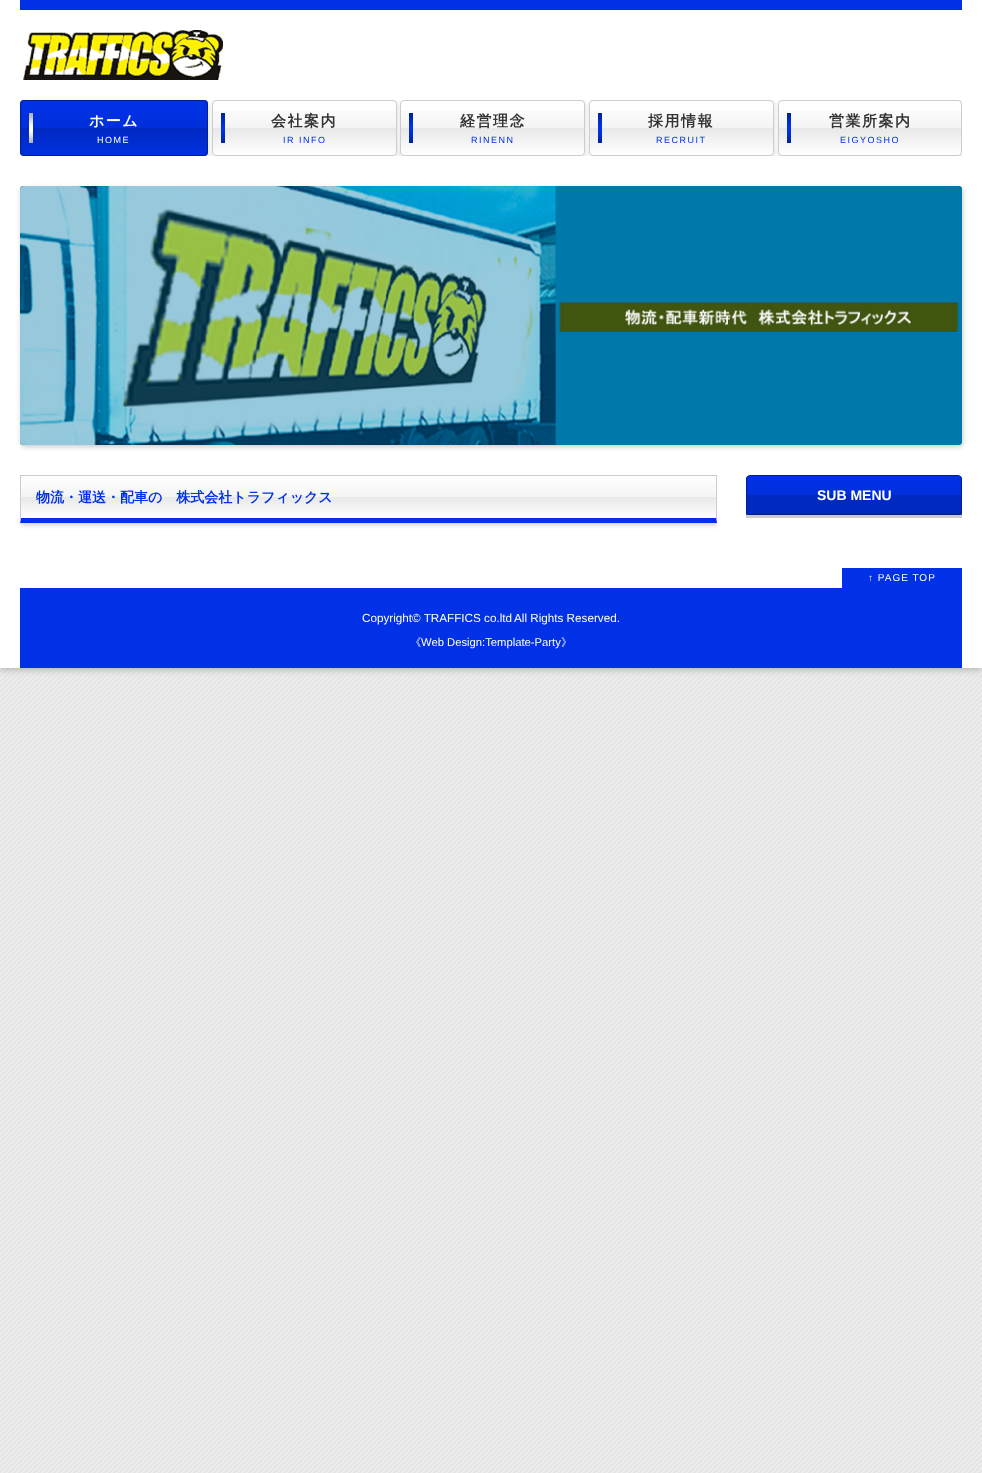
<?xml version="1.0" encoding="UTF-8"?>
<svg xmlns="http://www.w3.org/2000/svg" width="982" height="1473">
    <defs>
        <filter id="blur1" x="-50%" y="-200%" width="200%" height="500%"><feGaussianBlur stdDeviation="4"/></filter>
        <clipPath id="clip1"><rect x="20" y="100" width="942" height="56"/></clipPath>
        <filter id="blur2" x="-50%" y="-200%" width="200%" height="500%"><feGaussianBlur stdDeviation="2.5"/></filter>
        <clipPath id="clip2"><path d="M 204 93 H 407 V 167 H 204 Z M 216 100 H 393 C 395 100 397 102 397 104 V 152 C 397 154 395 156 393 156 H 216 C 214 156 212 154 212 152 V 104 C 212 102 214 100 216 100 Z" clip-rule="evenodd"/></clipPath>
        <clipPath id="clip3"><path d="M 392 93 H 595 V 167 H 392 Z M 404 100 H 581 C 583 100 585 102 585 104 V 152 C 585 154 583 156 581 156 H 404 C 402 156 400 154 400 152 V 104 C 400 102 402 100 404 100 Z" clip-rule="evenodd"/></clipPath>
        <clipPath id="clip4"><path d="M 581 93 H 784 V 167 H 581 Z M 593 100 H 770 C 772 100 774 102 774 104 V 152 C 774 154 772 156 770 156 H 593 C 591 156 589 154 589 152 V 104 C 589 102 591 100 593 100 Z" clip-rule="evenodd"/></clipPath>
        <clipPath id="clip5"><path d="M 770 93 H 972 V 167 H 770 Z M 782 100 H 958 C 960 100 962 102 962 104 V 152 C 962 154 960 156 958 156 H 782 C 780 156 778 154 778 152 V 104 C 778 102 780 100 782 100 Z" clip-rule="evenodd"/></clipPath>
        <clipPath id="clip6"><rect x="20" y="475" width="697" height="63"/></clipPath>
        <linearGradient id="g1" gradientUnits="userSpaceOnUse" x1="369" y1="476" x2="369" y2="518"><stop offset="0" stop-color="#FFFFFF"/><stop offset="0.49" stop-color="#F4F4F4"/><stop offset="0.5" stop-color="#E8E8E8"/><stop offset="1" stop-color="#FFFFFF"/></linearGradient>
        <clipPath id="clip7"><path d="M 750 475 H 958 C 960 475 962 477 962 479 V 515 H 746 V 479 C 746 477 748 475 750 475 Z"/></clipPath>
        <linearGradient id="g2" gradientUnits="userSpaceOnUse" x1="854" y1="476" x2="854" y2="514"><stop offset="0" stop-color="#0031E6"/><stop offset="0.49" stop-color="#002FDC"/><stop offset="0.5" stop-color="#0029C1"/></linearGradient>
    </defs>
    <rect width="100%" height="100%" fill="#FFFFFF"/>
    <image x="0" y="668" width="982" height="805" href="img_01.png"/>
    <rect x="0" y="0" width="982" height="668" fill="#999999" filter="url(#blur1)"/>
    <rect x="0" y="0" width="982" height="668" fill="#FFFFFF"/>
    <rect x="20" y="0" width="942" height="10" fill="#0031E6"/>
    <image x="23" y="30" width="200" height="50" href="img_02.png"/>
    <g clip-path="url(#clip1)">
        <rect x="21" y="102" width="188" height="56" rx="4" fill="#E2E2E2" filter="url(#blur2)"/>
    </g>
    <image x="20" y="100" width="188" height="56" href="img_03.png"/>
    <rect x="20.5" y="100.5" width="187" height="55" rx="3.5" fill="none" stroke="#001F91"/>
    <text x="89" y="126" font-family="WenQuanYi Zen Hei" font-size="15" font-weight="700" letter-spacing="1.5" fill="#FFFFFF">ホーム</text>
    <text x="97" y="143" font-family="Liberation Sans" font-size="9" letter-spacing="1.5" fill="#FFFFFF">HOME</text>
    <g clip-path="url(#clip1)">
        <g clip-path="url(#clip2)">
            <rect x="213" y="102" width="185" height="56" rx="4" fill="#E2E2E2" filter="url(#blur2)"/>
        </g>
    </g>
    <image x="212" y="111" width="185" height="45" href="img_04.png"/>
    <rect x="212.5" y="100.5" width="184" height="55" rx="3.5" fill="none" stroke="#CCCCCC"/>
    <text x="271" y="126" font-family="WenQuanYi Zen Hei" font-size="15" font-weight="700" letter-spacing="1.5" fill="#333333">会社案内</text>
    <text x="283" y="143" font-family="Liberation Sans" font-size="9" letter-spacing="1.5" fill="#0031E6">IR INFO</text>
    <g clip-path="url(#clip1)">
        <g clip-path="url(#clip3)">
            <rect x="401" y="102" width="185" height="56" rx="4" fill="#E2E2E2" filter="url(#blur2)"/>
        </g>
    </g>
    <image x="400" y="111" width="185" height="45" href="img_05.png"/>
    <rect x="400.5" y="100.5" width="184" height="55" rx="3.5" fill="none" stroke="#CCCCCC"/>
    <text x="460" y="126" font-family="WenQuanYi Zen Hei" font-size="15" font-weight="700" letter-spacing="1.5" fill="#333333">経営理念</text>
    <text x="471" y="143" font-family="Liberation Sans" font-size="9" letter-spacing="1.5" fill="#0031E6">RINENN</text>
    <g clip-path="url(#clip1)">
        <g clip-path="url(#clip4)">
            <rect x="590" y="102" width="185" height="56" rx="4" fill="#E2E2E2" filter="url(#blur2)"/>
        </g>
    </g>
    <image x="589" y="111" width="185" height="45" href="img_04.png"/>
    <rect x="589.5" y="100.5" width="184" height="55" rx="3.5" fill="none" stroke="#CCCCCC"/>
    <text x="648" y="126" font-family="WenQuanYi Zen Hei" font-size="15" font-weight="700" letter-spacing="1.5" fill="#333333">採用情報</text>
    <text x="656" y="143" font-family="Liberation Sans" font-size="9" letter-spacing="1.5" fill="#0031E6">RECRUIT</text>
    <g clip-path="url(#clip1)">
        <g clip-path="url(#clip5)">
            <rect x="779" y="102" width="184" height="56" rx="4" fill="#E2E2E2" filter="url(#blur2)"/>
        </g>
    </g>
    <image x="778" y="111" width="184" height="45" href="img_06.png"/>
    <rect x="778.5" y="100.5" width="183" height="55" rx="3.5" fill="none" stroke="#CCCCCC"/>
    <text x="829" y="126" font-family="WenQuanYi Zen Hei" font-size="15" font-weight="700" letter-spacing="1.5" fill="#333333">営業所案内</text>
    <text x="840" y="143" font-family="Liberation Sans" font-size="9" letter-spacing="1.5" fill="#0031E6">EIGYOSHO</text>
    <rect x="21" y="188" width="942" height="259" rx="4" fill="#CCCCCC" filter="url(#blur2)"/>
    <image x="20" y="186" width="942" height="259" href="img_07.png"/>
    <image x="20" y="186" width="942" height="259" href="img_08.png"/>
    <image x="20" y="186" width="942" height="259" href="img_09.png"/>
    <g clip-path="url(#clip6)">
        <rect x="21" y="477" width="697" height="48" fill="#CCCCCC" filter="url(#blur2)"/>
    </g>
    <rect x="21" y="476" width="695" height="42" fill="url(#g1)"/>
    <rect x="20" y="475" width="697" height="1" fill="#CCCCCC"/>
    <path d="M 717 475 V 523 L 716 518 V 476 Z" fill="#CCCCCC"/>
    <path d="M 717 523 H 20 L 21 518 H 716 Z" fill="#0031E6"/>
    <path d="M 20 523 V 475 L 21 476 V 518 Z" fill="#CCCCCC"/>
    <text x="36" y="502" font-family="WenQuanYi Zen Hei" font-size="14" font-weight="700" fill="#0031E6">物流・運送・配車の　株式会社トラフィックス</text>
    <g clip-path="url(#clip7)">
        <rect x="746" y="476" width="216" height="38" fill="url(#g2)"/>
    </g>
    <path d="M 750 475.5 H 958 C 960 475.5 961.5 477 961.5 479 V 514.5 H 746.5 V 479 C 746.5 477 748 475.5 750 475.5 Z" fill="none" stroke="#001F91"/>
    <text x="817" y="500" font-family="Liberation Sans" font-size="14" font-weight="700" fill="#FFFFFF">SUB MENU</text>
    <rect x="746" y="515" width="216" height="1" fill="#CCCCCC"/>
    <rect x="961" y="515" width="1" height="3" fill="#CCCCCC"/>
    <rect x="746" y="515" width="1" height="3" fill="#CCCCCC"/>
    <rect x="747" y="516" width="214" height="2" fill="#CCCCCC"/>
    <rect x="842" y="568" width="120" height="20" fill="#0031E6"/>
    <text x="868" y="581" font-family="Liberation Sans" font-size="10" letter-spacing="1" fill="#FFFFFF">↑ PAGE TOP</text>
    <rect x="20" y="588" width="942" height="80" fill="#0031E6"/>
    <text x="362" y="622" font-family="Liberation Sans" font-size="11.7" fill="#FFFFFF">Copyright© TRAFFICS co.ltd</text>
    <text x="514" y="622" font-family="Liberation Sans" font-size="11.7" fill="#FFFFFF">All Rights Reserved.</text>
    <text x="410" y="646" font-family="WenQuanYi Zen Hei" font-size="11.25" font-weight="500" fill="#FFFFFF">《</text>
    <text x="421" y="646" font-family="Liberation Sans" font-size="11.25" fill="#FFFFFF">Web Design:Template-Party</text>
    <text x="561" y="646" font-family="WenQuanYi Zen Hei" font-size="11.25" font-weight="500" fill="#FFFFFF">》</text>
</svg>
